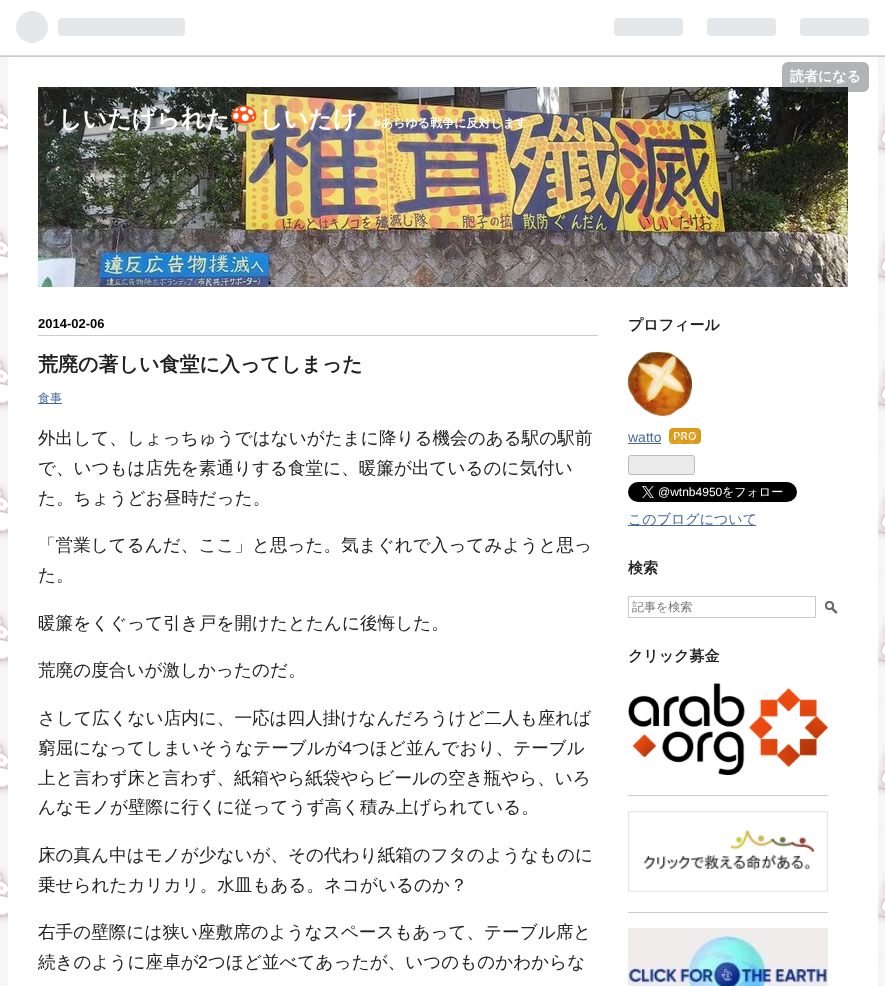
<?xml version="1.0" encoding="UTF-8"?>
<svg xmlns="http://www.w3.org/2000/svg" width="885" height="986">
    <defs>
        <clipPath id="clip1"><rect x="669" y="428" width="32" height="16"/></clipPath>
        <clipPath id="clip2"><rect x="632" y="599" width="180" height="17"/></clipPath>
    </defs>
    <rect width="100%" height="100%" fill="#FFFFFF"/>
    <image x="0" y="57" width="885" height="929" href="img_01.png"/>
    <rect x="0" y="55" width="885" height="1" fill="#D2D8DD"/>
    <rect x="0" y="56" width="885" height="1" fill="#CCCCCC"/>
    <image x="16" y="11" width="169" height="32" href="img_02.png"/>
    <image x="614" y="18" width="255" height="18" href="img_03.png"/>
    <rect x="8" y="57" width="870" height="929" fill="#FFFFFF"/>
    <image x="38" y="87" width="810" height="200" href="img_04.png"/>
    <rect x="782" y="62" width="87" height="30" rx="6" fill="#3D4245" fill-opacity="0.4"/>
    <text x="790" y="81" font-family="WenQuanYi Zen Hei" font-size="14" font-weight="700" fill="#FFFFFF">読者になる</text>
    <text x="58" y="127" font-family="WenQuanYi Zen Hei" font-size="24" font-weight="700" fill="#FFFFFF">しいたげられた</text>
    <text x="229" y="127" font-family="Noto Color Emoji" font-size="24" font-weight="700" fill="#FFFFFF">🍄</text>
    <text x="259" y="127" font-family="WenQuanYi Zen Hei" font-size="24" font-weight="700" fill="#FFFFFF">しいたけ</text>
    <text x="374" y="127" font-family="Liberation Sans" font-size="12" font-weight="700" fill="#FFFFFF">#</text>
    <text x="381" y="127" font-family="WenQuanYi Zen Hei" font-size="12" font-weight="700" fill="#FFFFFF">あらゆる戦争に反対します</text>
    <rect x="38" y="335" width="560" height="1" fill="#CCCCCC"/>
    <text x="38" y="328" font-family="Liberation Sans" font-size="13" font-weight="700" fill="#000000">2014-02-06</text>
    <text x="38" y="371" font-family="WenQuanYi Zen Hei" font-size="20" font-weight="700" fill="#222222">荒廃の著しい食堂に入ってしまった</text>
    <rect x="38" y="403" width="24" height="1" fill="#456898"/>
    <text x="38" y="402" font-family="WenQuanYi Zen Hei" font-size="12" font-weight="500" fill="#456898">食事</text>
    <text font-family="WenQuanYi Zen Hei" font-size="17.6" font-weight="500" fill="#222222">
        <tspan x="38" y="444">外出して、しょっちゅうではないがたまに降りる機会のある駅の駅前</tspan>
        <tspan x="38" y="474">で、いつもは店先を素通りする食堂に、暖簾が出ているのに気付い</tspan>
        <tspan x="38" y="504">た。ちょうどお昼時だった。</tspan>
    </text>
    <text font-family="WenQuanYi Zen Hei" font-size="17.6" font-weight="500" fill="#222222">
        <tspan x="38" y="551">「営業してるんだ、ここ」と思った。気まぐれで入ってみようと思っ</tspan>
        <tspan x="38" y="581">た。</tspan>
    </text>
    <text x="38" y="629" font-family="WenQuanYi Zen Hei" font-size="17.6" font-weight="500" fill="#222222">暖簾をくぐって引き戸を開けたとたんに後悔した。</text>
    <text x="38" y="676" font-family="WenQuanYi Zen Hei" font-size="17.6" font-weight="500" fill="#222222">荒廃の度合いが激しかったのだ。</text>
    <text font-family="WenQuanYi Zen Hei" font-size="17.6" font-weight="500" fill="#222222">
        <tspan x="38" y="724">さして広くない店内に、一応は四人掛けなんだろうけど二人も座れば</tspan>
        <tspan x="38" y="754">窮屈になってしまいそうなテーブルが</tspan>
    </text>
    <text x="342" y="754" font-family="Liberation Sans" font-size="17.6" fill="#222222">4</text>
    <text x="352" y="754" font-family="WenQuanYi Zen Hei" font-size="17.6" font-weight="500" fill="#222222">つほど並んでおり、テーブル</text>
    <text font-family="WenQuanYi Zen Hei" font-size="17.6" font-weight="500" fill="#222222">
        <tspan x="38" y="784">上と言わず床と言わず、紙箱やら紙袋やらビールの空き瓶やら、いろ</tspan>
        <tspan x="38" y="813">んなモノが壁際に行くに従ってうず高く積み上げられている。</tspan>
    </text>
    <text font-family="WenQuanYi Zen Hei" font-size="17.6" font-weight="500" fill="#222222">
        <tspan x="38" y="861">床の真ん中はモノが少ないが、その代わり紙箱のフタのようなものに</tspan>
        <tspan x="38" y="891">乗せられたカリカリ。水皿もある。ネコがいるのか？</tspan>
    </text>
    <text font-family="WenQuanYi Zen Hei" font-size="17.6" font-weight="500" fill="#222222">
        <tspan x="38" y="938">右手の壁際には狭い座敷席のようなスペースもあって、テーブル席と</tspan>
        <tspan x="38" y="968">続きのように座卓が</tspan>
    </text>
    <text x="198" y="968" font-family="Liberation Sans" font-size="17.6" fill="#222222">2</text>
    <text x="208" y="968" font-family="WenQuanYi Zen Hei" font-size="17.6" font-weight="500" fill="#222222">つほど並べてあったが、いつのものかわからな</text>
    <text x="628" y="330" font-family="WenQuanYi Zen Hei" font-size="15" font-weight="700" fill="#222222">プロフィール</text>
    <image x="628" y="352" width="64" height="64" href="img_05.png"/>
    <text x="628" y="442" font-family="Liberation Sans" font-size="14" fill="#456898">watto</text>
    <rect x="628" y="443" width="33" height="1" fill="#456898"/>
    <image x="669" y="428" width="32" height="16" href="img_06.png"/>
    <g clip-path="url(#clip1)">
        <text x="669" y="443" font-family="WenQuanYi Zen Hei" font-size="14" font-weight="500" font-style="italic" fill="#E2AF47">はて</text>
    </g>
    <rect x="628.5" y="455.5" width="66" height="19" rx="2.5" fill="#EBEBEB" stroke="#BBBBBB"/>
    <rect x="628" y="482" width="169" height="20" rx="10" fill="#000000"/>
    <image x="642" y="486" width="12" height="12" href="img_07.png"/>
    <text x="658" y="496" font-family="Liberation Sans" font-size="12" fill="#FFFFFF">@wtnb4950</text>
    <text x="722" y="496" font-family="WenQuanYi Zen Hei" font-size="12" font-weight="500" fill="#FFFFFF">をフォロー</text>
    <rect x="628" y="525" width="128" height="1" fill="#456898"/>
    <text x="628" y="524" font-family="WenQuanYi Zen Hei" font-size="14" font-weight="500" fill="#456898">このブログについて</text>
    <text x="628" y="573" font-family="WenQuanYi Zen Hei" font-size="15" font-weight="700" fill="#222222">検索</text>
    <rect x="628.5" y="596.5" width="187" height="21" fill="none" stroke="#CCCCCC"/>
    <g clip-path="url(#clip2)">
        <text x="632" y="611" font-family="WenQuanYi Zen Hei" font-size="12" font-weight="500" fill="#757575">記事を検索</text>
    </g>
    <image x="825" y="601" width="13" height="13" href="img_08.png"/>
    <text x="628" y="661" font-family="WenQuanYi Zen Hei" font-size="15" font-weight="700" fill="#222222">クリック募金</text>
    <image x="628" y="683" width="200" height="92" href="img_09.png"/>
    <rect x="628" y="795" width="200" height="1" fill="#CCCCCC"/>
    <image x="628" y="811" width="200" height="81" href="img_10.png"/>
    <rect x="628" y="912" width="200" height="1" fill="#CCCCCC"/>
    <image x="628" y="928" width="200" height="58" href="img_11.png"/>
</svg>
